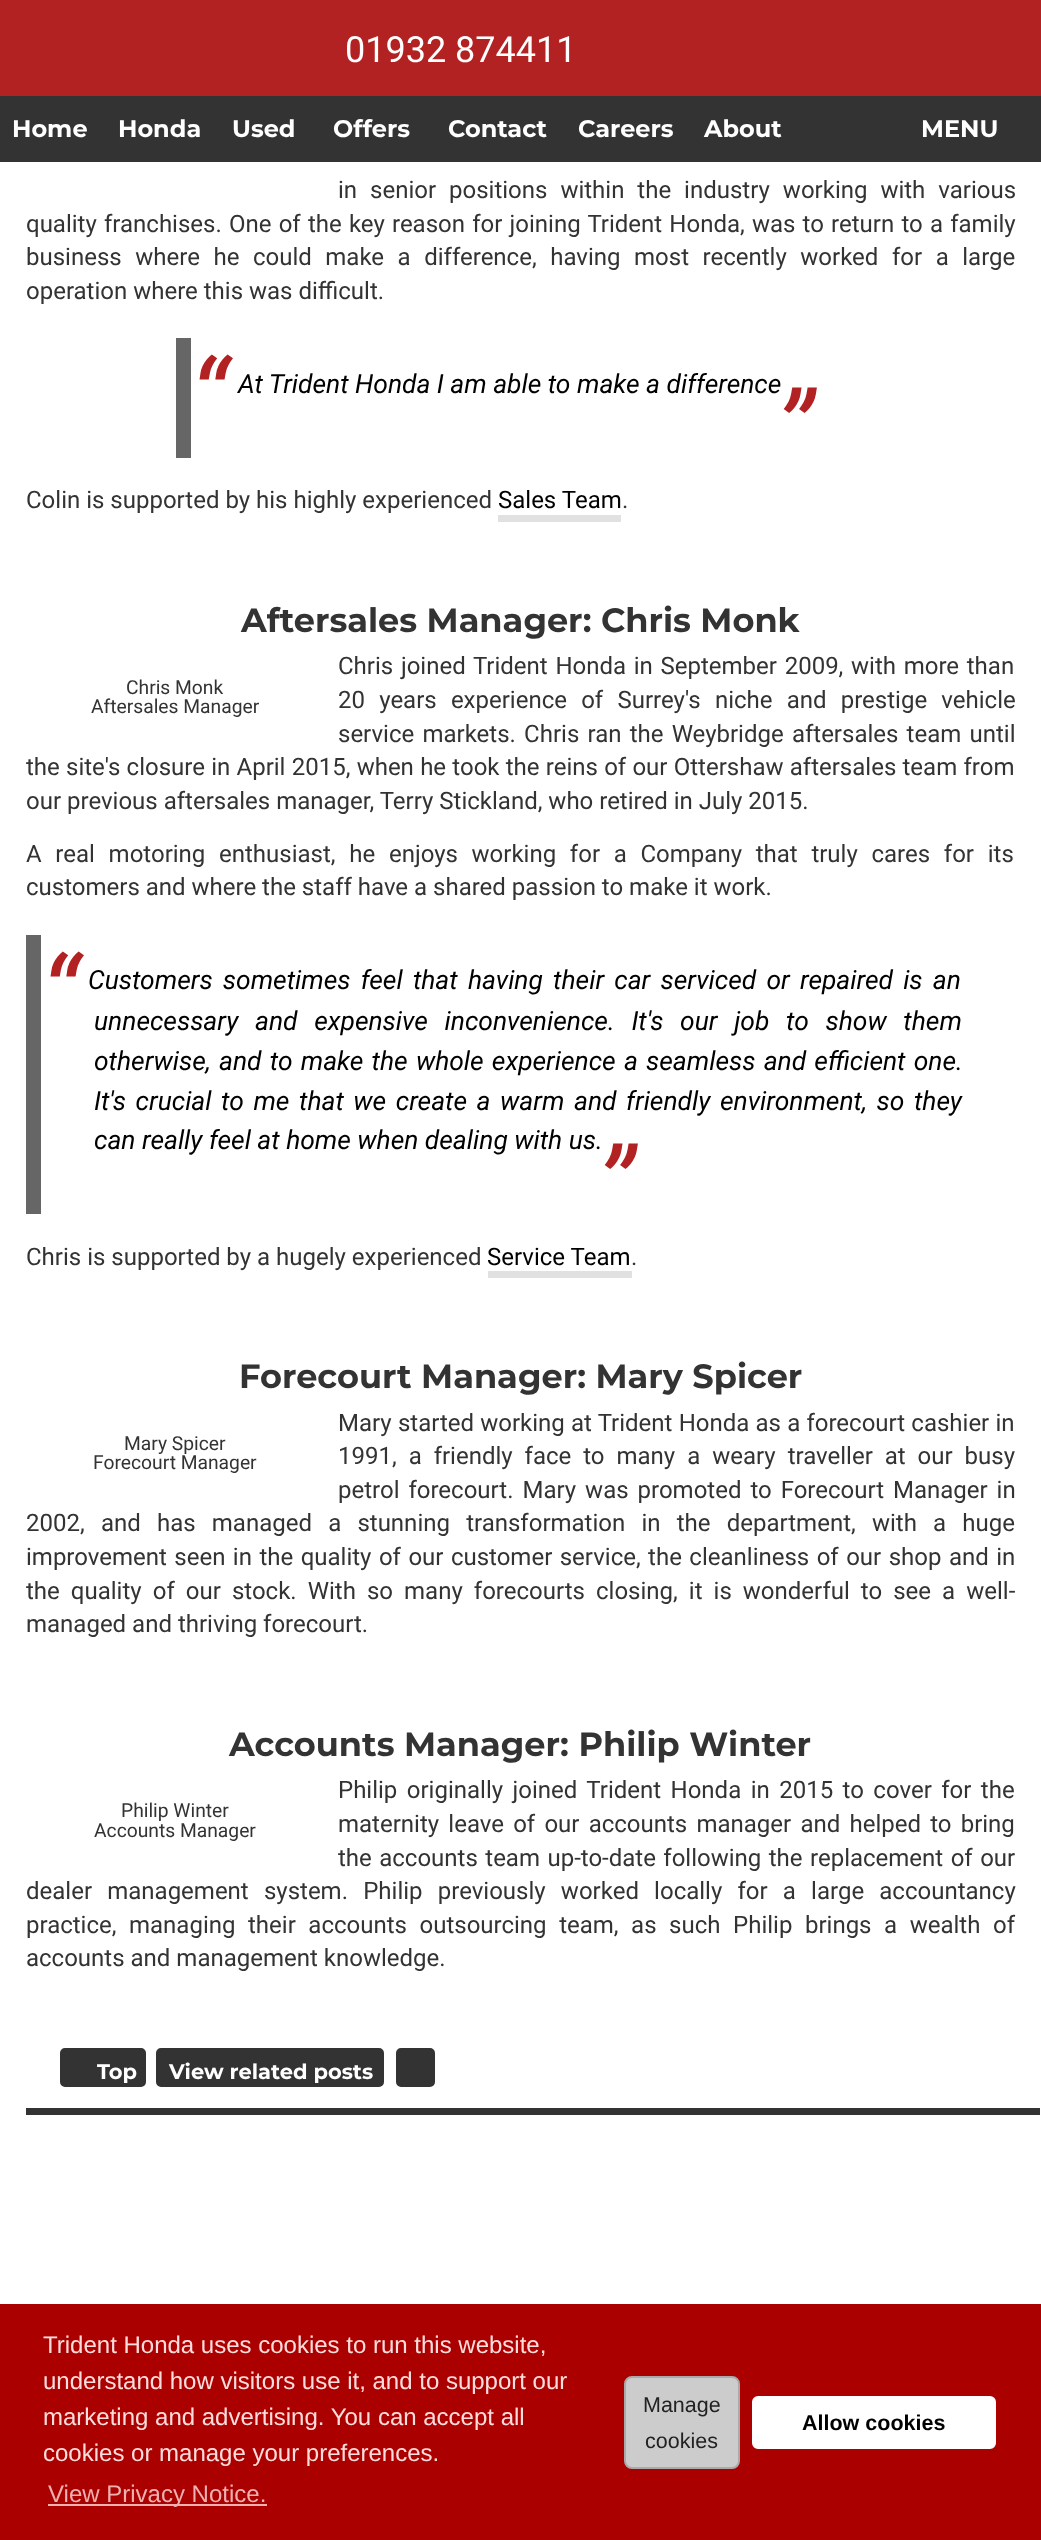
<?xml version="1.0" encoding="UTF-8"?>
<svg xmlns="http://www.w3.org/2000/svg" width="1041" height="2540">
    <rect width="100%" height="100%" fill="#FFFFFF"/>
    <rect x="0" y="0" width="1041" height="96" fill="#B22222"/>
    <text x="345" y="62" font-family="Roboto" font-size="36" fill="#FFFFFF">01932 874411</text>
    <rect x="0" y="96" width="1041" height="66" fill="#333333"/>
    <text x="12" y="137" font-family="Montserrat" font-size="24" font-weight="700" fill="#FFFFFF">Home</text>
    <text x="118" y="137" font-family="Montserrat" font-size="24" font-weight="700" fill="#FFFFFF">Honda</text>
    <text x="232" y="137" font-family="Montserrat" font-size="24" font-weight="700" fill="#FFFFFF">Used</text>
    <text x="333" y="137" font-family="Montserrat" font-size="24" font-weight="700" fill="#FFFFFF">Offers</text>
    <text x="448" y="137" font-family="Montserrat" font-size="24" font-weight="700" fill="#FFFFFF">Contact</text>
    <text x="578" y="137" font-family="Montserrat" font-size="24" font-weight="700" fill="#FFFFFF">Careers</text>
    <text x="704" y="137" font-family="Montserrat" font-size="24" font-weight="700" fill="#FFFFFF">About</text>
    <text x="921" y="137" font-family="Montserrat" font-size="24" font-weight="700" fill="#FFFFFF">MENU</text>
    <text x="338" y="198" word-spacing="7" font-family="Roboto" font-size="24" fill="#333333">in senior positions within the industry working with various</text>
    <text font-family="Roboto" font-size="24" fill="#333333">
        <tspan x="26" y="232" word-spacing="1.25">quality franchises. One of the key reason for joining Trident Honda, was to return to a family</tspan>
        <tspan x="26" y="265" word-spacing="7.6">business where he could make a difference, having most recently worked for a large</tspan>
        <tspan x="26" y="299">operation where this was difficult.</tspan>
    </text>
    <rect x="176" y="338" width="15" height="120" fill="#666666"/>
    <text x="190" y="435" font-family="Roboto" font-size="106" font-style="italic" fill="#B22222">“</text>
    <text x="238" y="393" font-family="Roboto" font-size="26.4" font-style="italic" fill="#000000">At Trident Honda I am able to make a difference</text>
    <text x="776" y="467" font-family="Roboto" font-size="106" font-style="italic" fill="#B22222">”</text>
    <text x="26" y="508" font-family="Roboto" font-size="24" fill="#333333">Colin is supported by his highly experienced</text>
    <text x="498" y="508" font-family="Roboto" font-size="24" fill="#000000">Sales Team</text>
    <rect x="498" y="515" width="123" height="7" fill="#E1E1E1"/>
    <text x="622" y="508" font-family="Roboto" font-size="24" fill="#333333">.</text>
    <text x="241" y="632" font-family="Montserrat" font-size="33.6" font-weight="700" fill="#333333">Aftersales Manager: Chris Monk</text>
    <text font-family="Roboto" font-size="24" fill="#333333">
        <tspan x="338" y="674" word-spacing="1.75">Chris joined Trident Honda in September 2009, with more than</tspan>
        <tspan x="338" y="708" word-spacing="8.25">20 years experience of Surrey's niche and prestige vehicle</tspan>
        <tspan x="338" y="742" word-spacing="2.25">service markets. Chris ran the Weybridge aftersales team until</tspan>
    </text>
    <text font-family="Roboto" font-size="24" fill="#333333">
        <tspan x="26" y="775" word-spacing="0.3">the site's closure in April 2015, when he took the reins of our Ottershaw aftersales team from</tspan>
        <tspan x="26" y="809">our previous aftersales manager, Terry Stickland, who retired in July 2015.</tspan>
    </text>
    <text x="126" y="694" font-family="Roboto" font-size="19.25" fill="#333333">Chris Monk</text>
    <text x="91" y="713" font-family="Roboto" font-size="19.25" fill="#333333">Aftersales Manager</text>
    <text font-family="Roboto" font-size="24" fill="#333333">
        <tspan x="26" y="862" word-spacing="7.75">A real motoring enthusiast, he enjoys working for a Company that truly cares for its</tspan>
        <tspan x="26" y="895">customers and where the staff have a shared passion to make it work.</tspan>
    </text>
    <rect x="26" y="935" width="15" height="279" fill="#666666"/>
    <text x="41" y="1032" font-family="Roboto" font-size="106" font-style="italic" fill="#B22222">“</text>
    <text x="88" y="989" word-spacing="3.75" font-family="Roboto" font-size="26.4" font-style="italic" fill="#000000">Customers sometimes feel that having their car serviced or repaired is an</text>
    <text font-family="Roboto" font-size="26.4" font-style="italic" fill="#000000">
        <tspan x="94" y="1030" word-spacing="10.25">unnecessary and expensive inconvenience. It's our job to show them</tspan>
        <tspan x="94" y="1070" word-spacing="1.75">otherwise, and to make the whole experience a seamless and efficient one.</tspan>
        <tspan x="94" y="1110" word-spacing="3.1">It's crucial to me that we create a warm and friendly environment, so they</tspan>
        <tspan x="94" y="1149">can really feel at home when dealing with us.</tspan>
    </text>
    <text x="597" y="1223" font-family="Roboto" font-size="106" font-style="italic" fill="#B22222">”</text>
    <text x="26" y="1265" font-family="Roboto" font-size="24" fill="#333333">Chris is supported by a hugely experienced</text>
    <text x="487" y="1265" font-family="Roboto" font-size="24" fill="#000000">Service Team</text>
    <rect x="488" y="1271" width="144" height="7" fill="#E1E1E1"/>
    <text x="631" y="1265" font-family="Roboto" font-size="24" fill="#333333">.</text>
    <text x="239" y="1388" font-family="Montserrat" font-size="33.6" font-weight="700" fill="#333333">Forecourt Manager: Mary Spicer</text>
    <text font-family="Roboto" font-size="24" fill="#333333">
        <tspan x="338" y="1431" word-spacing="0.25">Mary started working at Trident Honda as a forecourt cashier in</tspan>
        <tspan x="338" y="1464" word-spacing="6">1991, a friendly face to many a weary traveller at our busy</tspan>
        <tspan x="338" y="1498" word-spacing="3">petrol forecourt. Mary was promoted to Forecourt Manager in</tspan>
    </text>
    <text font-family="Roboto" font-size="24" fill="#333333">
        <tspan x="26" y="1531" word-spacing="10.25">2002, and has managed a stunning transformation in the department, with a huge</tspan>
        <tspan x="26" y="1565" word-spacing="1.5">improvement seen in the quality of our customer service, the cleanliness of our shop and in</tspan>
        <tspan x="26" y="1599" word-spacing="5.1">the quality of our stock. With so many forecourts closing, it is wonderful to see a well-</tspan>
        <tspan x="26" y="1632">managed and thriving forecourt.</tspan>
    </text>
    <text x="124" y="1450" font-family="Roboto" font-size="19.25" fill="#333333">Mary Spicer</text>
    <text x="93" y="1469" font-family="Roboto" font-size="19.25" fill="#333333">Forecourt Manager</text>
    <text x="229" y="1756" font-family="Montserrat" font-size="33.6" font-weight="700" fill="#333333">Accounts Manager: Philip Winter</text>
    <text font-family="Roboto" font-size="24" fill="#333333">
        <tspan x="338" y="1798" word-spacing="3.5">Philip originally joined Trident Honda in 2015 to cover for the</tspan>
        <tspan x="338" y="1832" word-spacing="3.25">maternity leave of our accounts manager and helped to bring</tspan>
        <tspan x="338" y="1866" word-spacing="1.5">the accounts team up-to-date following the replacement of our</tspan>
    </text>
    <text font-family="Roboto" font-size="24" fill="#333333">
        <tspan x="26" y="1899" word-spacing="9.25">dealer management system. Philip previously worked locally for a large accountancy</tspan>
        <tspan x="26" y="1933" word-spacing="6.6">practice, managing their accounts outsourcing team, as such Philip brings a wealth of</tspan>
        <tspan x="26" y="1966">accounts and management knowledge.</tspan>
    </text>
    <text x="121" y="1817" font-family="Roboto" font-size="19.25" fill="#333333">Philip Winter</text>
    <text x="94" y="1837" font-family="Roboto" font-size="19.25" fill="#333333">Accounts Manager</text>
    <rect x="26" y="2108" width="1014" height="7" fill="#333333"/>
    <rect x="61" y="2049" width="84" height="37" rx="4" fill="#333333" stroke="#333333" stroke-width="2"/>
    <text x="97" y="2079" font-family="Montserrat" font-size="21" font-weight="700" fill="#FFFFFF">Top</text>
    <rect x="157" y="2049" width="226" height="37" rx="4" fill="#333333" stroke="#333333" stroke-width="2"/>
    <text x="169" y="2079" font-family="Montserrat" font-size="21" font-weight="700" fill="#FFFFFF">View related posts</text>
    <rect x="397" y="2049" width="37" height="37" rx="4" fill="#333333" stroke="#333333" stroke-width="2"/>
    <rect x="0" y="2304" width="1041" height="236" fill="#AA0000"/>
    <text font-family="Liberation Sans" font-size="24" fill="#FFDDDD">
        <tspan x="43" y="2353">Trident Honda uses cookies to run this website,</tspan>
        <tspan x="43" y="2389">understand how visitors use it, and to support our</tspan>
        <tspan x="43" y="2425">marketing and advertising. You can accept all</tspan>
        <tspan x="43" y="2461">cookies or manage your preferences.</tspan>
    </text>
    <rect x="48" y="2504" width="219" height="2" fill="#EEB1B1"/>
    <text x="48" y="2502" font-family="Liberation Sans" font-size="24" fill="#EEB1B1">View Privacy Notice.</text>
    <rect x="625" y="2377" width="114" height="91" rx="7" fill="#CCCCCC" stroke="#AAAAAA" stroke-width="2"/>
    <text x="643" y="2412" font-family="Liberation Sans" font-size="21.5" fill="#222222">Manage</text>
    <text x="645" y="2448" font-family="Liberation Sans" font-size="21.5" fill="#222222">cookies</text>
    <rect x="751" y="2395" width="246" height="55" rx="7" fill="#FFFFFF" stroke="#AA0000" stroke-width="2"/>
    <text x="802" y="2430" font-family="Liberation Sans" font-size="21.5" font-weight="700" fill="#000000">Allow cookies</text>
</svg>
